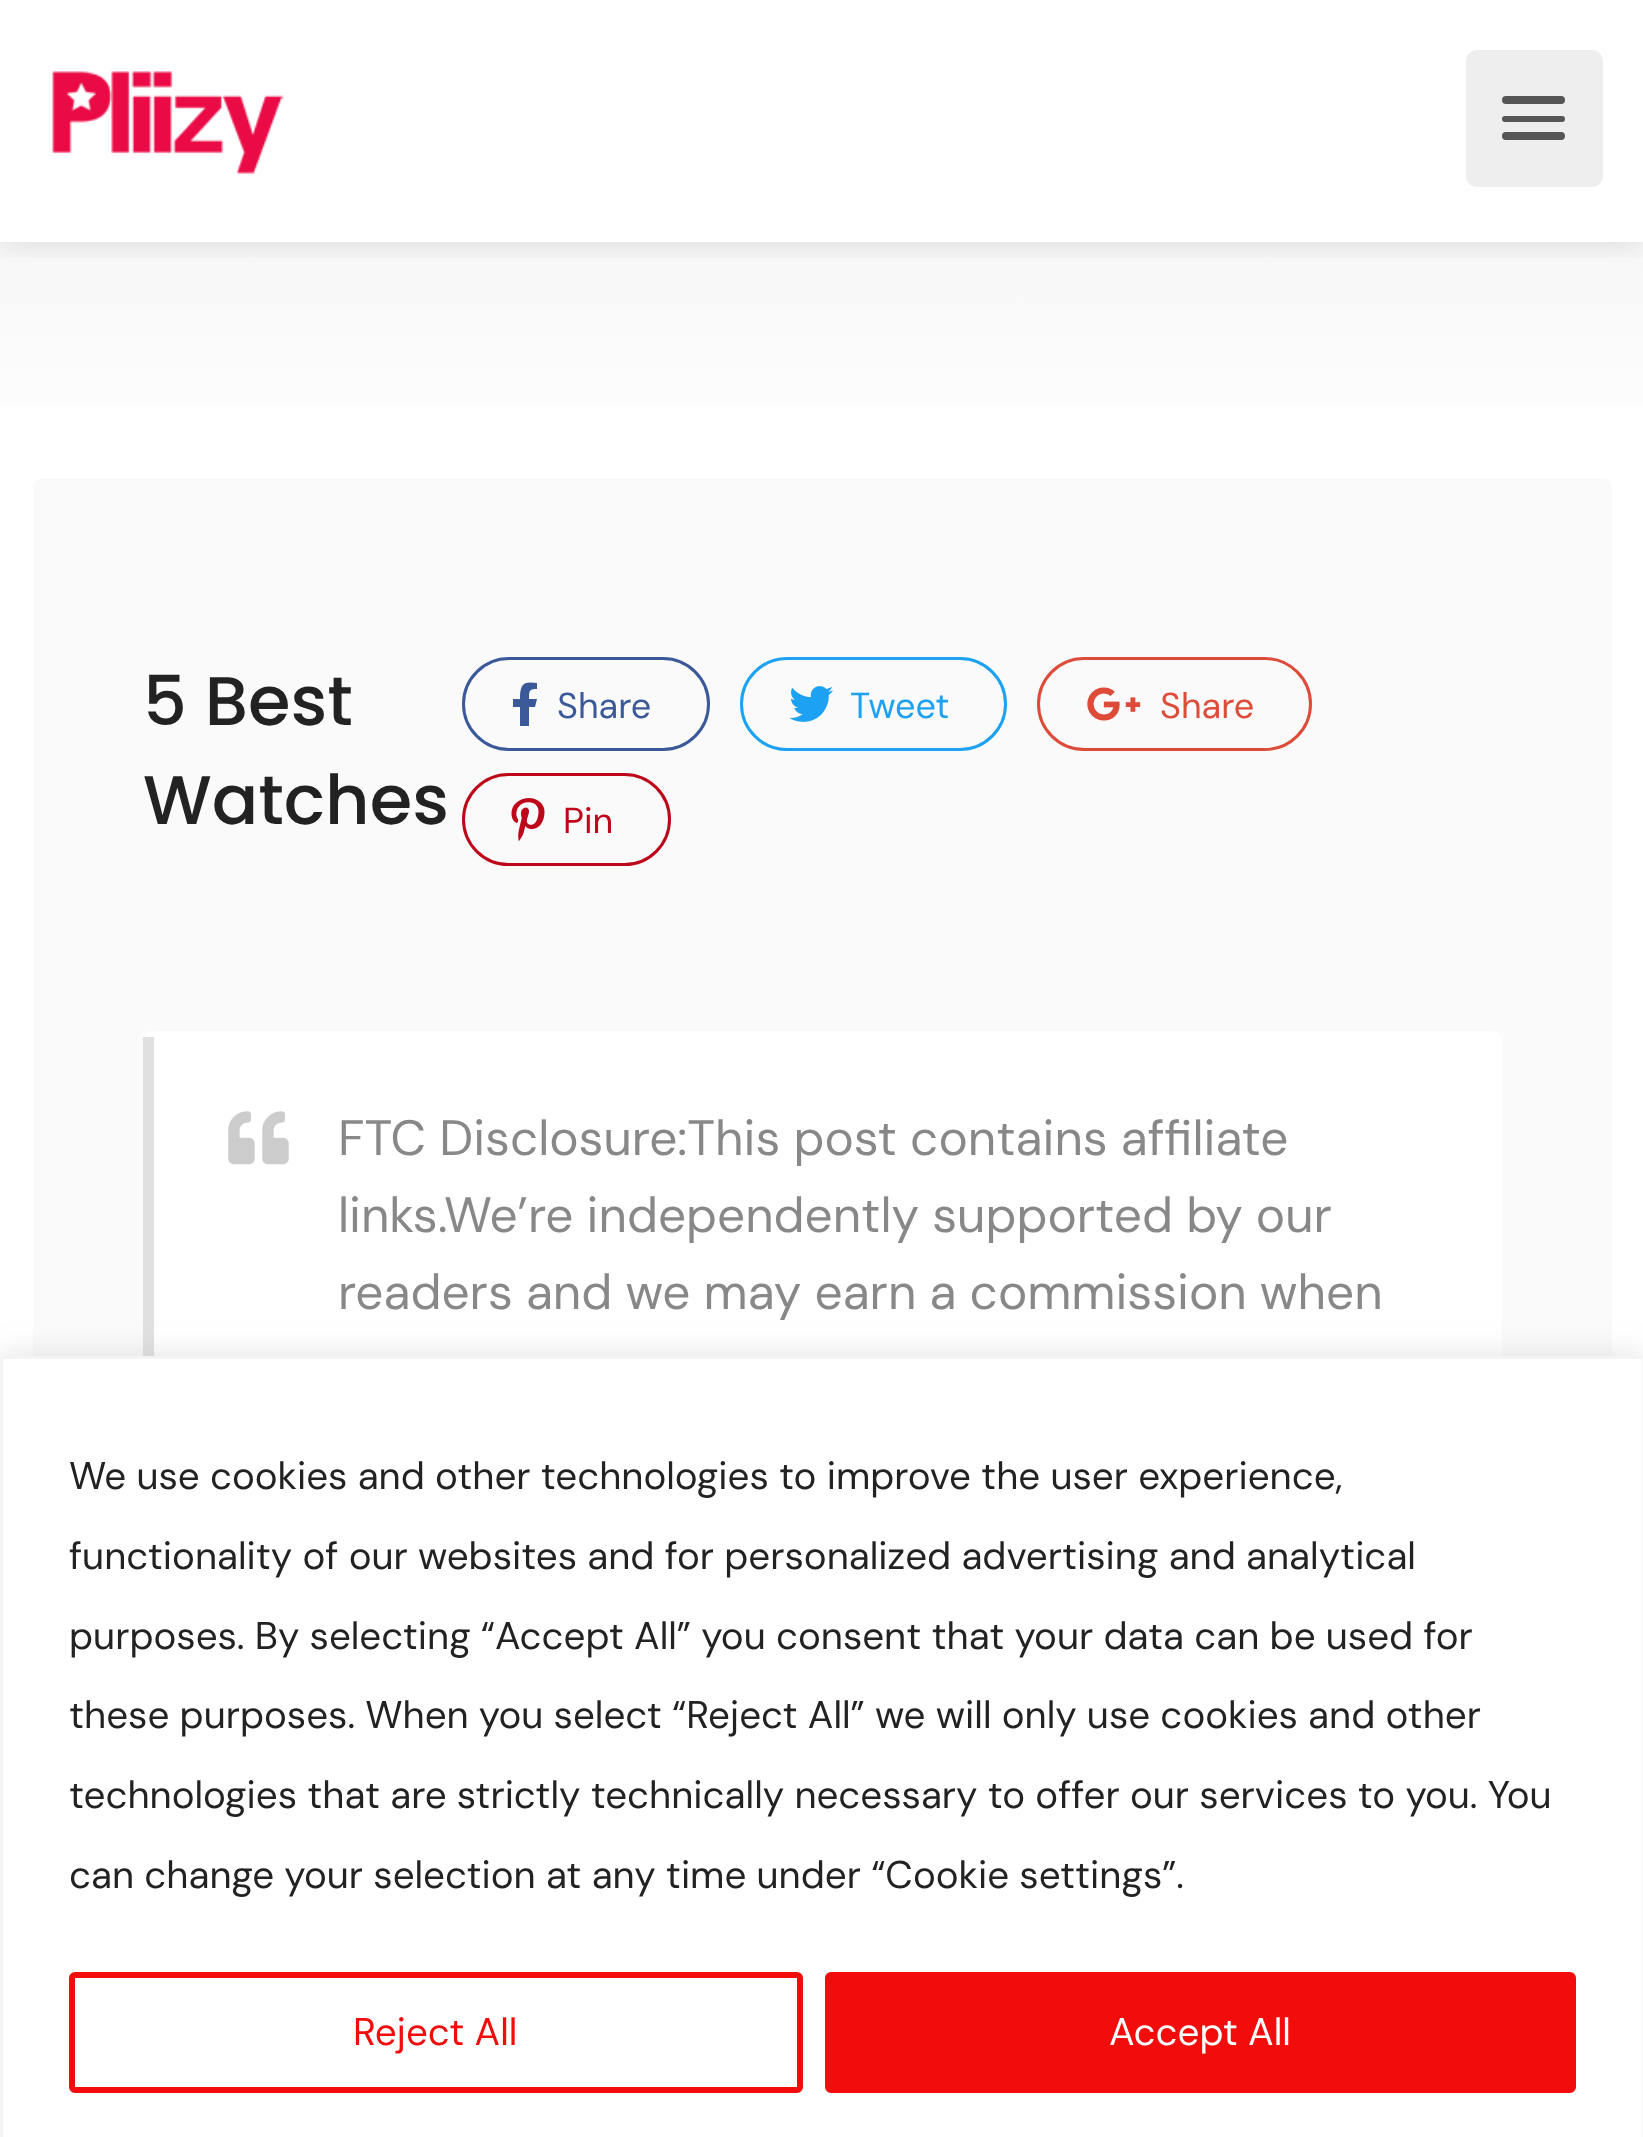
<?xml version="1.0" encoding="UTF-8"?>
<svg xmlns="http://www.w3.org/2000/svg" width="1643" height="2137">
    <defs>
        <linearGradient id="g1" gradientUnits="userSpaceOnUse" x1="822" y1="242" x2="822" y2="479"><stop offset="0" stop-color="#F7F7F7"/><stop offset="1" stop-color="#FFFFFF"/></linearGradient>
        <clipPath id="clip1"><rect x="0" y="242" width="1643" height="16"/></clipPath>
        <filter id="blur1" x="-50%" y="-200%" width="200%" height="500%"><feGaussianBlur stdDeviation="16.5"/></filter>
        <filter id="blur2" x="-50%" y="-200%" width="200%" height="500%"><feGaussianBlur stdDeviation="14"/></filter>
    </defs>
    <rect width="100%" height="100%" fill="#FFFFFF"/>
    <rect x="0" y="242" width="1643" height="163" fill="url(#g1)"/>
    <g clip-path="url(#clip1)">
        <rect x="0" y="0" width="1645" height="242" fill="#000000" fill-opacity="0.12" filter="url(#blur1)"/>
    </g>
    <image x="52" y="71" width="232" height="103" href="img_01.png"/>
    <rect x="1466" y="50" width="137" height="137" rx="11" fill="#EEEEEE"/>
    <rect x="1502" y="132" width="63" height="8" rx="4" fill="#555555"/>
    <rect x="1502" y="96" width="63" height="8" rx="4" fill="#555555"/>
    <rect x="1502" y="116" width="63" height="6" rx="3" fill="#555555"/>
    <rect x="33" y="479" width="1579" height="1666" rx="8" fill="#FAFAFA"/>
    <text font-family="Poppins" font-size="68.75" font-weight="500" fill="#222222">
        <tspan x="143" y="725">5 Best</tspan>
        <tspan x="143" y="824">Watches</tspan>
    </text>
    <rect x="463.5" y="658.5" width="245" height="91" rx="45.5" fill="none" stroke="#3B5998" stroke-width="3"/>
    <path d="M 535 707 H 529 V 726 H 520 V 707 H 513 V 699 H 520 C 520 684 523 681 537 683 V 689 C 529 689 529 691 529 699 H 537 Z" fill="#3B5998"/>
    <text x="557" y="718" font-family="DM Sans" font-size="36" fill="#3B5998">Share</text>
    <rect x="741.5" y="658.5" width="264" height="91" rx="45.5" fill="none" stroke="#1DA1F2" stroke-width="3"/>
    <image x="789" y="686" width="45" height="36" href="img_02.png"/>
    <text x="850" y="718" font-family="DM Sans" font-size="36" fill="#1DA1F2">Tweet</text>
    <rect x="1038.5" y="658.5" width="272" height="91" rx="45.5" fill="none" stroke="#DD4B39" stroke-width="3"/>
    <image x="1087" y="687" width="54" height="34" href="img_03.png"/>
    <text x="1160" y="718" font-family="DM Sans" font-size="36" fill="#DD4B39">Share</text>
    <rect x="463.5" y="774.5" width="206" height="90" rx="45" fill="none" stroke="#BD081C" stroke-width="3"/>
    <image x="511" y="798" width="34" height="43" href="img_04.png"/>
    <text x="563" y="833" font-family="DM Sans" font-size="36" fill="#BD081C">Pin</text>
    <rect x="143" y="1031" width="1359" height="446" rx="11" fill="#FFFFFF"/>
    <rect x="143" y="1037" width="11" height="319" fill="#E0E0E0"/>
    <image x="228" y="1111" width="61" height="54" href="img_05.png"/>
    <text font-family="DM Sans" font-size="49.5" fill="#888888">
        <tspan x="338" y="1155">FTC Disclosure:This post contains affiliate</tspan>
        <tspan x="338" y="1232">links.We’re independently supported by our</tspan>
        <tspan x="338" y="1309">readers and we may earn a commission when</tspan>
    </text>
    <rect x="0" y="1353" width="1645" height="784" fill="#ACABAB" fill-opacity="0.3" filter="url(#blur2)"/>
    <rect x="1.5" y="1357.5" width="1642" height="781" fill="#FFFFFF" stroke="#F4F4F4" stroke-width="3"/>
    <text x="69" y="1489" font-family="DM Sans" font-size="38.5" fill="#222222">We use cookies and other technologies to improve the user experience,</text>
    <text x="69" y="1569" font-family="DM Sans" font-size="38.5" fill="#222222">functionality of our websites and for personalized advertising and analytical</text>
    <text x="69" y="1649" font-family="DM Sans" font-size="38.5" fill="#222222">purposes. By selecting “Accept All” you consent that your data can be used for</text>
    <text x="69" y="1728" font-family="DM Sans" font-size="38.5" fill="#222222">these purposes. When you select “Reject All” we will only use cookies and other</text>
    <text x="69" y="1808" font-family="DM Sans" font-size="38.5" fill="#222222">technologies that are strictly technically necessary to offer our services to you. You</text>
    <text x="69" y="1888" font-family="DM Sans" font-size="38.5" fill="#222222">can change your selection at any time under “Cookie settings”.</text>
    <rect x="72" y="1975" width="728" height="115" rx="3" fill="none" stroke="#F30C0C" stroke-width="6"/>
    <text x="353" y="2045" font-family="DM Sans" font-size="38.5" fill="#F30C0C">Reject All</text>
    <rect x="828" y="1975" width="745" height="115" rx="3" fill="#F30C0C" stroke="#F30C0C" stroke-width="6"/>
    <text x="1109" y="2045" font-family="DM Sans" font-size="38.5" fill="#FFFFFF">Accept All</text>
</svg>
